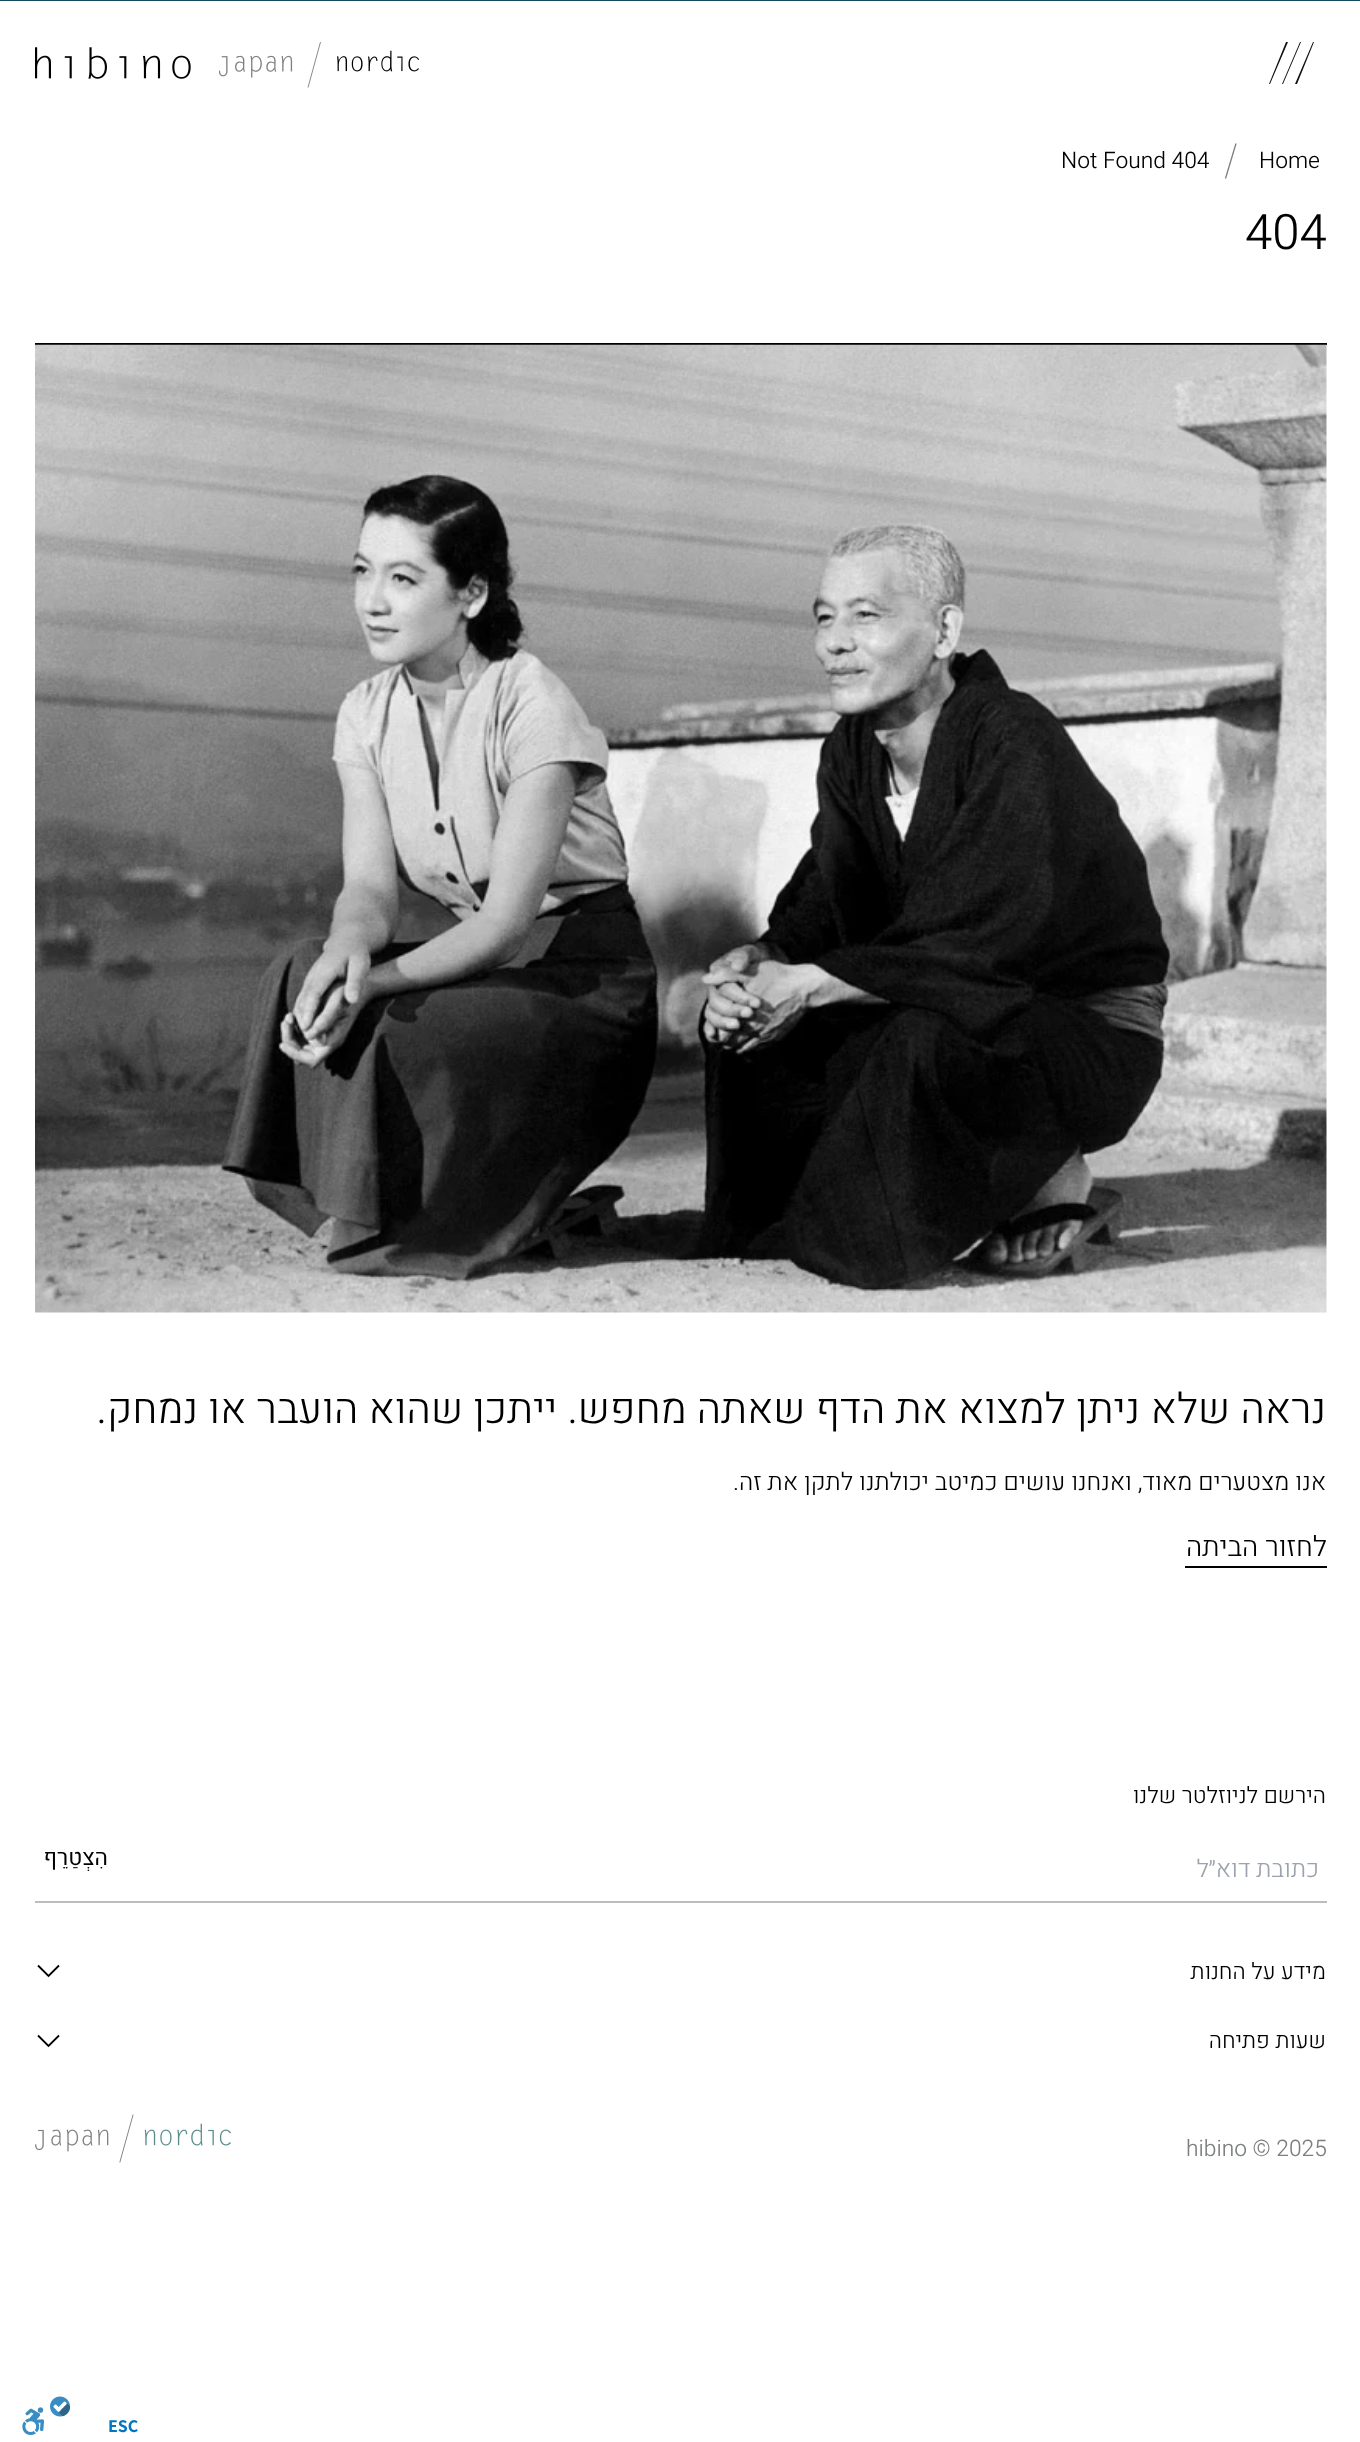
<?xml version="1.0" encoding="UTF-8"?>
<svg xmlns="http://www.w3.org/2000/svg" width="1360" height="2442">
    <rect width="100%" height="100%" fill="#FFFFFF"/>
    <path d="M 1313 42 H 1314 L 1297 84 H 1295 Z M 1286 42 H 1288 L 1270 84 H 1269 Z" fill="#121212"/>
    <path d="M 1300 42 H 1301 L 1283 84 H 1282 Z" fill="#121212"/>
    <image x="337" y="50" width="82" height="22" href="img_01.png"/>
    <path d="M 320.5 42 L 308 87.5" fill="none" stroke="#7B7F7D" stroke-width="0.9"/>
    <image x="219" y="55" width="74" height="23" href="img_02.png"/>
    <image x="35" y="47" width="156" height="32" href="img_03.png"/>
    <rect x="35" y="343" width="1292" height="2" fill="#000000"/>
    <text x="1259" y="168" font-family="Heebo" font-size="22.75" font-weight="300" fill="#000000">Home</text>
    <path d="M 1236 143.5 L 1225.5 178.5" fill="none" stroke="#7B7F7D" stroke-width="1.3"/>
    <text x="1061" y="168" font-family="Heebo" font-size="22.75" font-weight="300" fill="#000000">Not Found 404</text>
    <text x="1245" y="249" font-family="Heebo" font-size="49" font-weight="300" fill="#000000">404</text>
    <image x="35" y="344" width="1292" height="969" href="img_04.png"/>
    <text x="1326" y="1423" font-family="Heebo" font-size="42" font-weight="300" direction="rtl" fill="#000000">נראה שלא ניתן למצוא את הדף שאתה מחפש. ייתכן שהוא הועבר או נמחק.</text>
    <text x="1326" y="1490" font-family="Heebo" font-size="24.5" font-weight="300" direction="rtl" fill="#000000">אנו מצטערים מאוד, ואנחנו עושים כמיטב יכולתנו לתקן את זה.</text>
    <rect x="1185" y="1566" width="142" height="2" fill="#000000"/>
    <text x="1327" y="1556" font-family="Heebo" font-size="28" font-weight="300" direction="rtl" fill="#000000">לחזור הביתה</text>
    <text x="1326" y="1803" font-family="Heebo" font-size="22.75" font-weight="300" direction="rtl" fill="#000000">הירשם לניוזלטר שלנו</text>
    <rect x="35" y="1901" width="1292" height="2" fill="#BDBDBD"/>
    <text x="1319" y="1877" font-family="Heebo" font-size="24.5" font-weight="300" direction="rtl" fill="#9CA3AF">כתובת דוא״ל</text>
    <text x="108" y="1865" font-family="Heebo" font-size="22.75" direction="rtl" fill="#000000">הִצְטַרֵף</text>
    <text x="1326" y="1979" font-family="Heebo" font-size="22.75" font-weight="300" direction="rtl" fill="#000000">מידע על החנות</text>
    <path d="M 38 1965.5 L 48.5 1976 L 59 1965.5" fill="none" stroke="#000000" stroke-width="1.8"/>
    <text x="1326" y="2048" font-family="Heebo" font-size="22.75" font-weight="300" direction="rtl" fill="#000000">שעות פתיחה</text>
    <path d="M 38 2035.5 L 48.5 2046 L 59 2035.5" fill="none" stroke="#000000" stroke-width="1.8"/>
    <text x="1186" y="2156" font-family="Heebo" font-size="22.75" font-weight="300" fill="#7B7F7D">hibino © 2025</text>
    <image x="35" y="2114" width="196" height="49" href="img_05.png"/>
    <rect x="0" y="0" width="1360" height="1" fill="#15495F"/>
    <text x="108" y="2432" font-family="Assistant" font-size="18" font-weight="700" fill="#0077C0">ESC</text>
    <image x="22" y="2396" width="49" height="39" href="img_06.png"/>
</svg>
